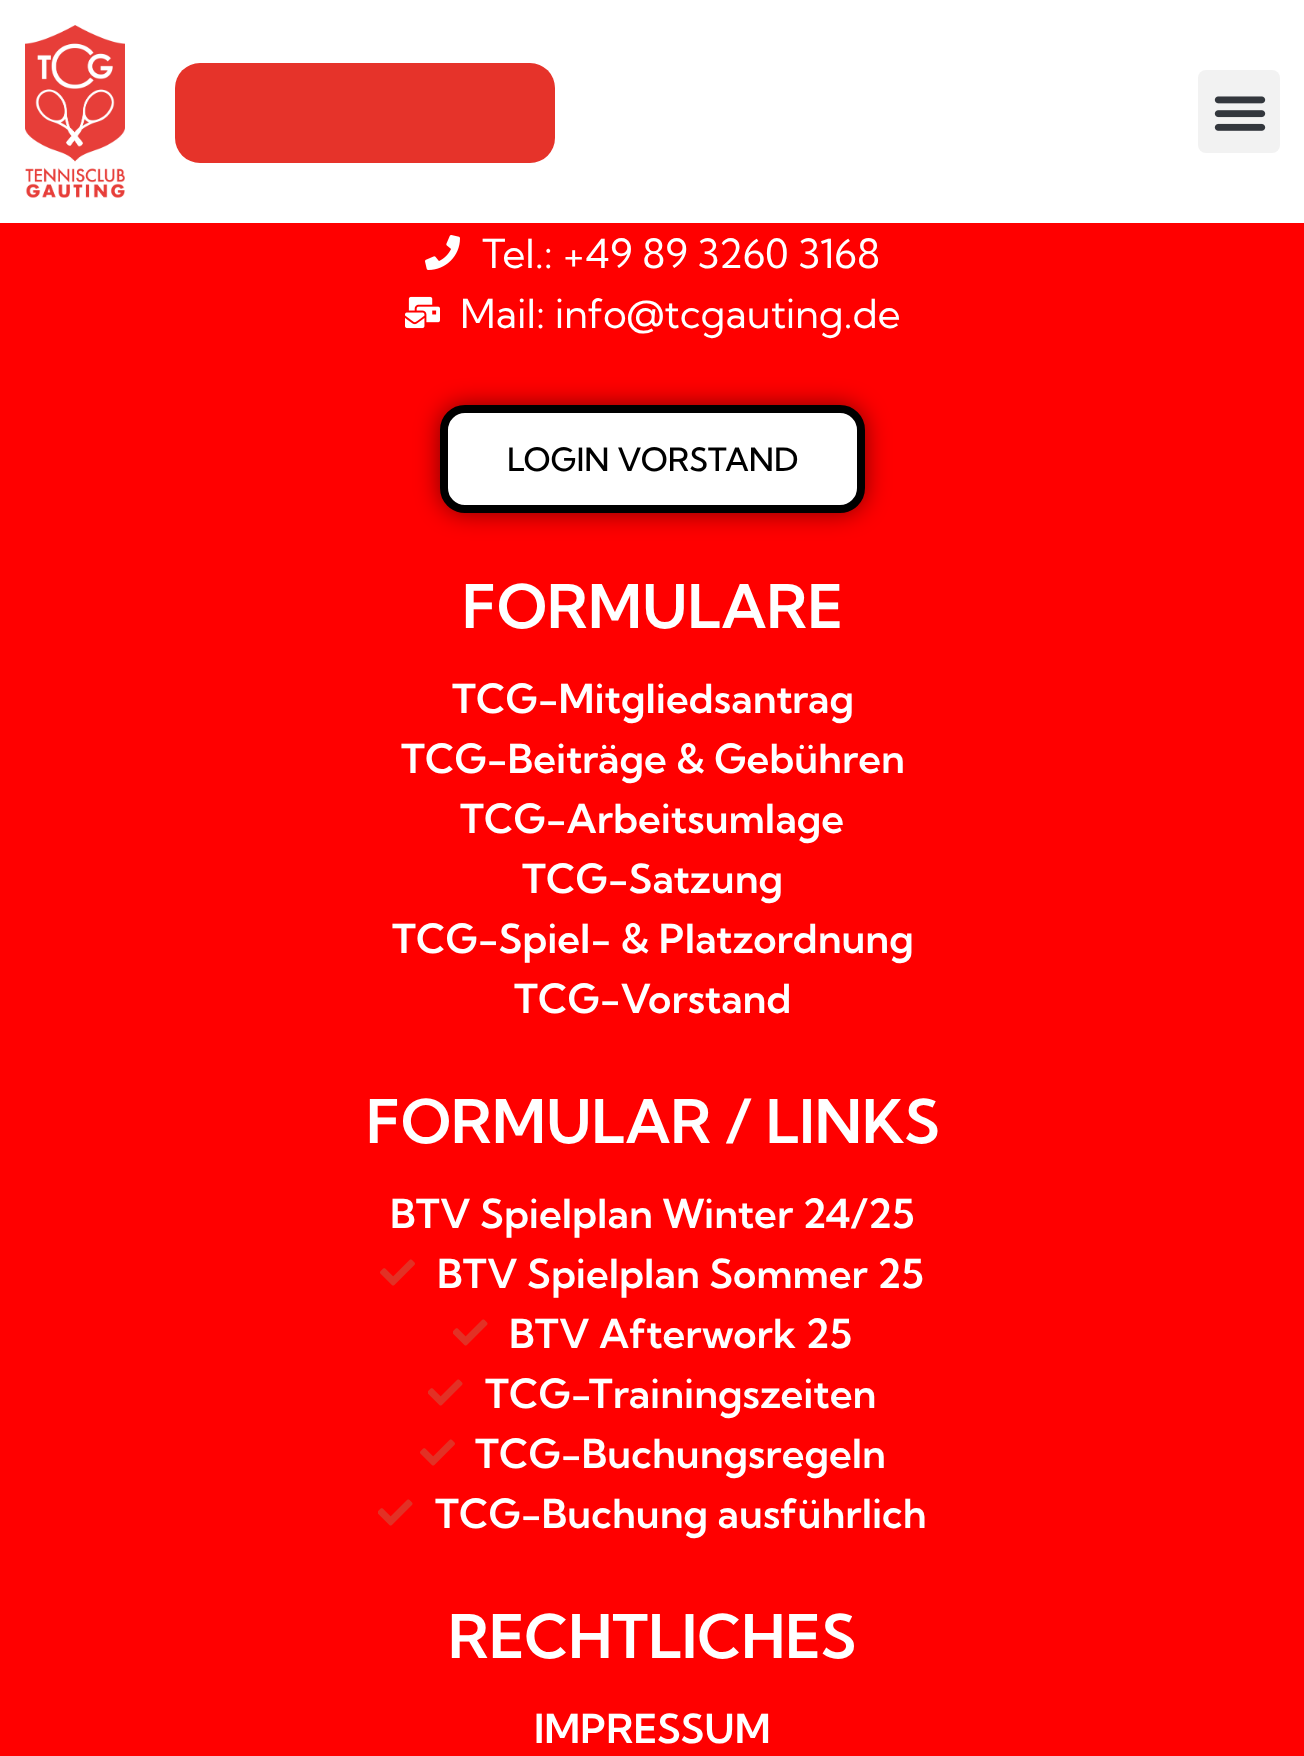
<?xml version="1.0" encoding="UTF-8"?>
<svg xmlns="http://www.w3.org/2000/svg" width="1304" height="1756">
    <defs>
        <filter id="blur1" x="-50%" y="-200%" width="200%" height="500%"><feGaussianBlur stdDeviation="12.5"/></filter>
    </defs>
    <rect width="100%" height="100%" fill="#FF0000"/>
    <rect x="0" y="0" width="1304" height="223" fill="#FFFFFF"/>
    <image x="25" y="25" width="100" height="173" href="img_01.png"/>
    <rect x="175" y="63" width="380" height="100" rx="25" fill="#E6332A"/>
    <rect x="1198" y="70" width="82" height="83" rx="8" fill="#F2F2F2"/>
    <image x="1214" y="96" width="52" height="35" href="img_02.png"/>
    <image x="425" y="235" width="35" height="35" href="img_03.png"/>
    <text x="482" y="268" font-family="Kumbh Sans" font-size="40" fill="#FFFFFF">Tel.: +49 89 3260 3168</text>
    <image x="405" y="296" width="35" height="33" href="img_04.png"/>
    <text x="460" y="328" font-family="Kumbh Sans" font-size="40" fill="#FFFFFF">Mail: info@tcgauting.de</text>
    <rect x="440" y="405" width="425" height="108" rx="25" fill="#000000" fill-opacity="0.5" filter="url(#blur1)"/>
    <rect x="444" y="409" width="417" height="100" rx="21" fill="#FFFFFF" stroke="#000000" stroke-width="8"/>
    <text x="507" y="471" font-family="Kumbh Sans" font-size="32" font-weight="500" fill="#000000">LOGIN VORSTAND</text>
    <text x="462" y="628" font-family="Kumbh Sans" font-size="60" font-weight="600" fill="#FFFFFF">FORMULARE</text>
    <text x="452" y="713" font-family="Kumbh Sans" font-size="40" font-weight="600" fill="#FFFFFF">TCG-Mitgliedsantrag</text>
    <text x="401" y="773" font-family="Kumbh Sans" font-size="40" font-weight="600" fill="#FFFFFF">TCG-Beiträge &amp; Gebühren</text>
    <text x="460" y="833" font-family="Kumbh Sans" font-size="40" font-weight="600" fill="#FFFFFF">TCG-Arbeitsumlage</text>
    <text x="522" y="893" font-family="Kumbh Sans" font-size="40" font-weight="600" fill="#FFFFFF">TCG-Satzung</text>
    <text x="392" y="953" font-family="Kumbh Sans" font-size="40" font-weight="600" fill="#FFFFFF">TCG-Spiel- &amp; Platzordnung</text>
    <text x="514" y="1013" font-family="Kumbh Sans" font-size="40" font-weight="600" fill="#FFFFFF">TCG-Vorstand</text>
    <text x="366" y="1143" font-family="Kumbh Sans" font-size="60" font-weight="600" fill="#FFFFFF">FORMULAR / LINKS</text>
    <text x="390" y="1228" font-family="Kumbh Sans" font-size="40" font-weight="600" fill="#FFFFFF">BTV Spielplan Winter 24/25</text>
    <image x="380" y="1259" width="35" height="27" href="img_05.png"/>
    <text x="437" y="1288" font-family="Kumbh Sans" font-size="40" font-weight="600" fill="#FFFFFF">BTV Spielplan Sommer 25</text>
    <image x="453" y="1319" width="35" height="27" href="img_06.png"/>
    <text x="509" y="1348" font-family="Kumbh Sans" font-size="40" font-weight="600" fill="#FFFFFF">BTV Afterwork 25</text>
    <image x="428" y="1379" width="35" height="27" href="img_06.png"/>
    <text x="485" y="1408" font-family="Kumbh Sans" font-size="40" font-weight="600" fill="#FFFFFF">TCG-Trainingszeiten</text>
    <image x="420" y="1439" width="35" height="27" href="img_05.png"/>
    <text x="475" y="1468" font-family="Kumbh Sans" font-size="40" font-weight="600" fill="#FFFFFF">TCG-Buchungsregeln</text>
    <image x="378" y="1499" width="35" height="27" href="img_06.png"/>
    <text x="435" y="1528" font-family="Kumbh Sans" font-size="40" font-weight="600" fill="#FFFFFF">TCG-Buchung ausführlich</text>
    <text x="448" y="1658" font-family="Kumbh Sans" font-size="60" font-weight="600" fill="#FFFFFF">RECHTLICHES</text>
    <text x="534" y="1743" font-family="Kumbh Sans" font-size="40" font-weight="600" fill="#FFFFFF">IMPRESSUM</text>
</svg>
